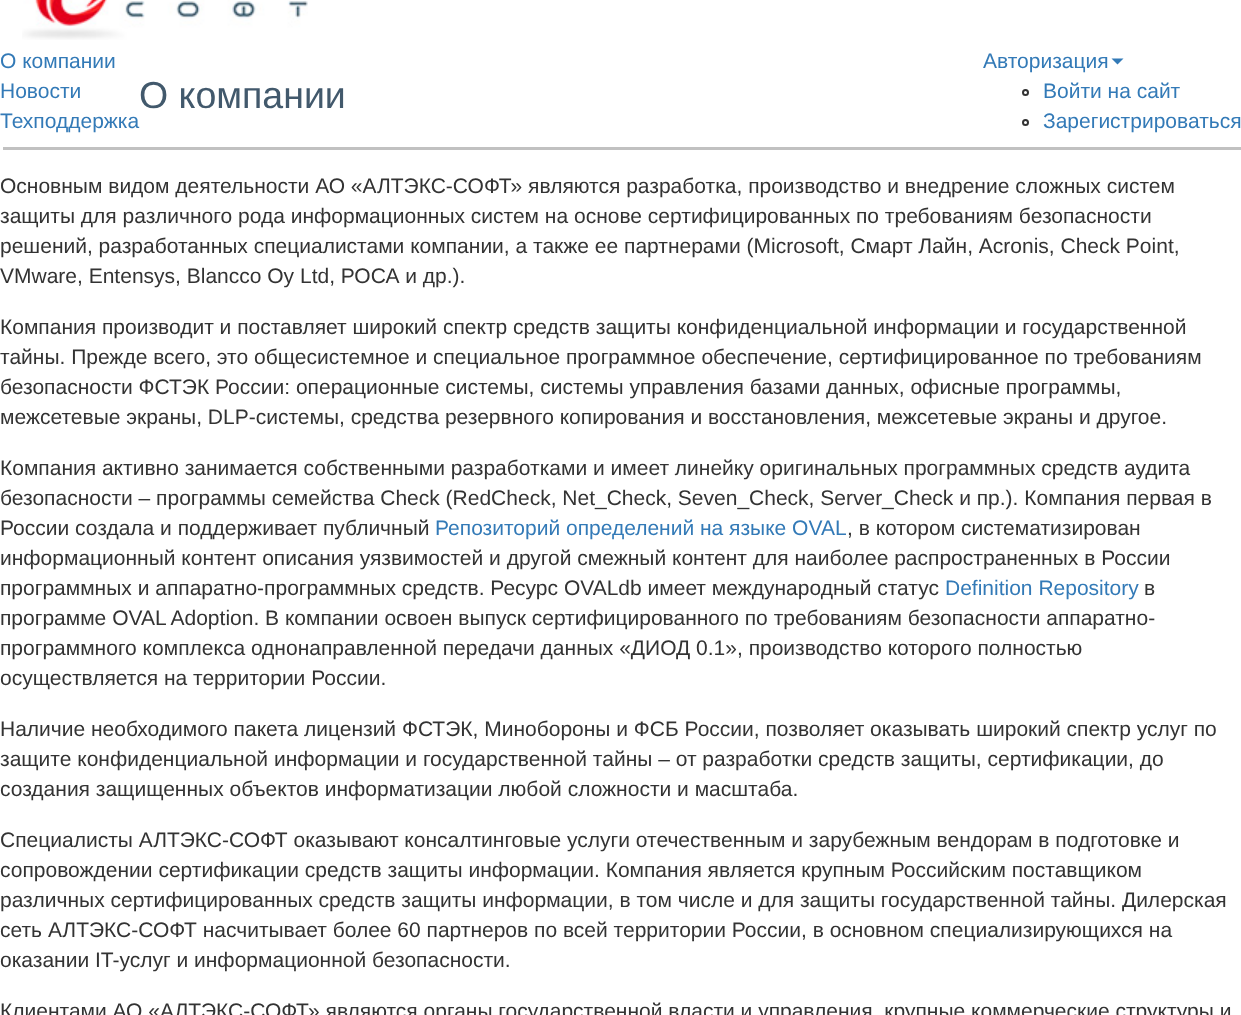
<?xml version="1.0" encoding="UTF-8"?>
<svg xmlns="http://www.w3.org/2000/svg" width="1241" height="1015">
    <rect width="100%" height="100%" fill="#FFFFFF"/>
    <image x="22" y="0" width="286" height="40" href="img_01.png"/>
    <text font-family="Liberation Sans" font-size="21" fill="#337AB7">
        <tspan x="0" y="68">О компании</tspan>
        <tspan x="0" y="98">Новости</tspan>
        <tspan x="0" y="128">Техподдержка</tspan>
    </text>
    <text x="983" y="68" font-family="Liberation Sans" font-size="21" fill="#337AB7">Авторизация</text>
    <path d="M 1111.5 58.5 H 1123.5 L 1117.5 64.5 Z" fill="#337AB7"/>
    <circle cx="1025.5" cy="92.5" r="2.5" fill="none" stroke="#333333" stroke-width="2"/>
    <text x="1043" y="98" font-family="Liberation Sans" font-size="21" fill="#337AB7">Войти на сайт</text>
    <circle cx="1025.5" cy="122.5" r="2.5" fill="none" stroke="#333333" stroke-width="2"/>
    <text x="1043" y="128" font-family="Liberation Sans" font-size="21" fill="#337AB7">Зарегистрироваться</text>
    <text x="139" y="108" font-family="Liberation Sans" font-size="37.5" fill="#42596C">О компании</text>
    <rect x="3" y="147" width="1238" height="3" fill="#C1C1C1"/>
    <text font-family="Liberation Sans" font-size="21" fill="#333333">
        <tspan x="0" y="193">Основным видом деятельности АО «АЛТЭКС-СОФТ» являются разработка, производство и внедрение сложных систем</tspan>
        <tspan x="0" y="223">защиты для различного рода информационных систем на основе сертифицированных по требованиям безопасности</tspan>
        <tspan x="0" y="253">решений, разработанных специалистами компании, а также ее партнерами (Microsoft, Смарт Лайн, Acronis, Check Point,</tspan>
        <tspan x="0" y="283">VMware, Entensys, Blancco Oy Ltd, РОСА и др.).</tspan>
    </text>
    <text font-family="Liberation Sans" font-size="21" fill="#333333">
        <tspan x="0" y="334">Компания производит и поставляет широкий спектр средств защиты конфиденциальной информации и государственной</tspan>
        <tspan x="0" y="364">тайны. Прежде всего, это общесистемное и специальное программное обеспечение, сертифицированное по требованиям</tspan>
        <tspan x="0" y="394">безопасности ФСТЭК России: операционные системы, системы управления базами данных, офисные программы,</tspan>
        <tspan x="0" y="424">межсетевые экраны, DLP-системы, средства резервного копирования и восстановления, межсетевые экраны и другое.</tspan>
    </text>
    <text font-family="Liberation Sans" font-size="21" fill="#333333">
        <tspan x="0" y="475">Компания активно занимается собственными разработками и имеет линейку оригинальных программных средств аудита</tspan>
        <tspan x="0" y="505">безопасности – программы семейства Check (RedCheck, Net_Check, Seven_Check, Server_Check и пр.). Компания первая в</tspan>
        <tspan x="0" y="535">России создала и поддерживает публичный</tspan>
    </text>
    <text x="435" y="535" font-family="Liberation Sans" font-size="21" fill="#337AB7">Репозиторий определений на языке OVAL</text>
    <text x="847" y="535" font-family="Liberation Sans" font-size="21" fill="#333333">, в котором систематизирован</text>
    <text font-family="Liberation Sans" font-size="21" fill="#333333">
        <tspan x="0" y="565">информационный контент описания уязвимостей и другой смежный контент для наиболее распространенных в России</tspan>
        <tspan x="0" y="595">программных и аппаратно-программных средств. Ресурс OVALdb имеет международный статус</tspan>
    </text>
    <text x="945" y="595" font-family="Liberation Sans" font-size="21" fill="#337AB7">Definition Repository</text>
    <text x="1144" y="595" font-family="Liberation Sans" font-size="21" fill="#333333">в</text>
    <text font-family="Liberation Sans" font-size="21" fill="#333333">
        <tspan x="0" y="625">программе OVAL Adoption. В компании освоен выпуск сертифицированного по требованиям безопасности аппаратно-</tspan>
        <tspan x="0" y="655">программного комплекса однонаправленной передачи данных «ДИОД 0.1», производство которого полностью</tspan>
        <tspan x="0" y="685">осуществляется на территории России.</tspan>
    </text>
    <text font-family="Liberation Sans" font-size="21" fill="#333333">
        <tspan x="0" y="736">Наличие необходимого пакета лицензий ФСТЭК, Минобороны и ФСБ России, позволяет оказывать широкий спектр услуг по</tspan>
        <tspan x="0" y="766">защите конфиденциальной информации и государственной тайны – от разработки средств защиты, сертификации, до</tspan>
        <tspan x="0" y="796">создания защищенных объектов информатизации любой сложности и масштаба.</tspan>
    </text>
    <text font-family="Liberation Sans" font-size="21" fill="#333333">
        <tspan x="0" y="847">Специалисты АЛТЭКС-СОФТ оказывают консалтинговые услуги отечественным и зарубежным вендорам в подготовке и</tspan>
        <tspan x="0" y="877">сопровождении сертификации средств защиты информации. Компания является крупным Российским поставщиком</tspan>
        <tspan x="0" y="907">различных сертифицированных средств защиты информации, в том числе и для защиты государственной тайны. Дилерская</tspan>
        <tspan x="0" y="937">сеть АЛТЭКС-СОФТ насчитывает более 60 партнеров по всей территории России, в основном специализирующихся на</tspan>
        <tspan x="0" y="967">оказании IT-услуг и информационной безопасности.</tspan>
    </text>
    <text x="0" y="1018" font-family="Liberation Sans" font-size="21" fill="#333333">Клиентами АО «АЛТЭКС-СОФТ» являются органы государственной власти и управления, крупные коммерческие структуры и</text>
</svg>
